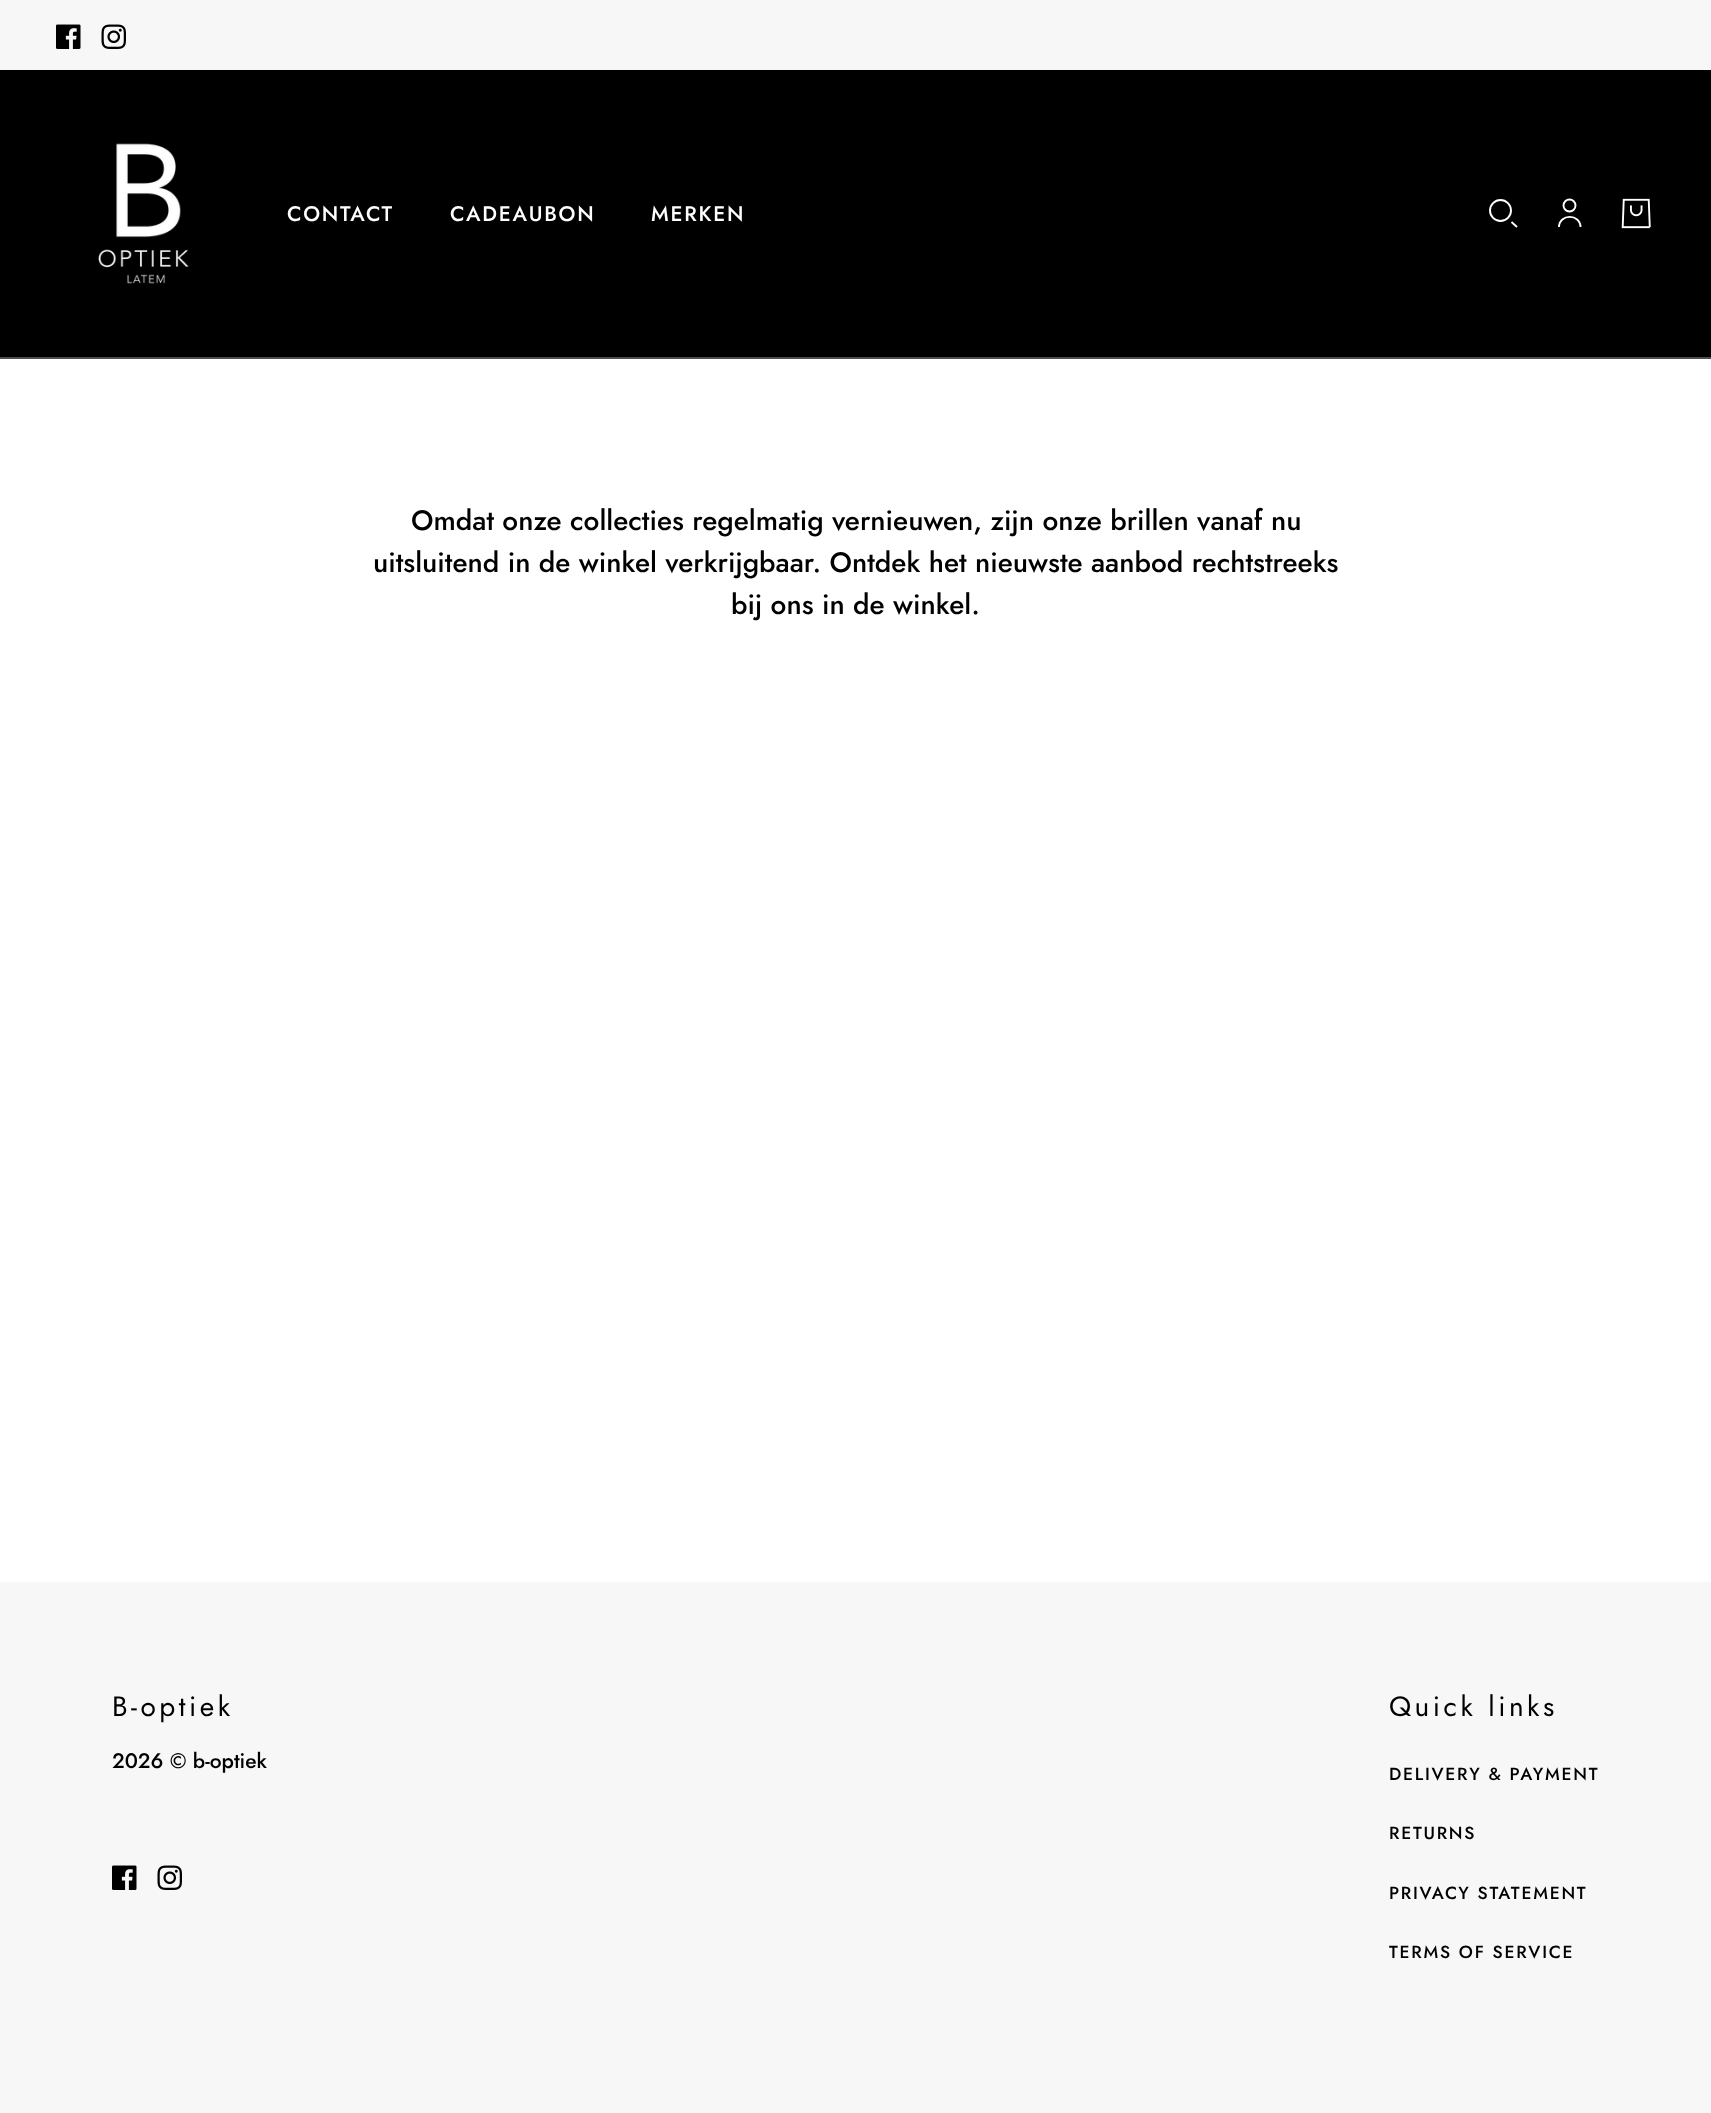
<?xml version="1.0" encoding="UTF-8"?>
<svg xmlns="http://www.w3.org/2000/svg" width="1711" height="2113">
    <rect width="100%" height="100%" fill="#FFFFFF"/>
    <rect x="0" y="0" width="1711" height="70" fill="#F7F7F7"/>
    <image x="56" y="24" width="25" height="25" href="img_01.png"/>
    <image x="101" y="24" width="25" height="25" href="img_02.png"/>
    <rect x="0" y="70" width="1711" height="287" fill="#000000"/>
    <rect x="0" y="357" width="1711" height="2" fill="#4D4D4D"/>
    <image x="98" y="143" width="91" height="141" href="img_03.png"/>
    <text x="287" y="221" font-family="Jost" font-size="21" font-weight="500" letter-spacing="1.75" fill="#FFFFFF">CONTACT</text>
    <text x="450" y="221" font-family="Jost" font-size="21" font-weight="500" letter-spacing="1.75" fill="#FFFFFF">CADEAUBON</text>
    <text x="651" y="221" font-family="Jost" font-size="21" font-weight="500" letter-spacing="1.75" fill="#FFFFFF">MERKEN</text>
    <circle cx="1500.5" cy="210.5" r="10.5" fill="none" stroke="#FFFFFF" stroke-width="1.9"/>
    <path d="M 1511.5 222 L 1517 227" fill="none" stroke="#FFFFFF" stroke-width="1.9"/>
    <circle cx="1569.5" cy="205.5" r="6" fill="none" stroke="#FFFFFF" stroke-width="1.9"/>
    <path d="M 1559 227 C 1559 213.5 1580.5 213.5 1580.5 227" fill="none" stroke="#FFFFFF" stroke-width="1.9"/>
    <image x="1621" y="198" width="30" height="31" href="img_04.png"/>
    <text x="411" y="530" font-family="Jost" font-size="28" font-weight="500" fill="#000000">Omdat onze collecties regelmatig vernieuwen, zijn onze brillen vanaf nu</text>
    <text x="373" y="572" font-family="Jost" font-size="28" font-weight="500" fill="#000000">uitsluitend in de winkel verkrijgbaar. Ontdek het nieuwste aanbod rechtstreeks</text>
    <text x="731" y="614" font-family="Jost" font-size="28" font-weight="500" fill="#000000">bij ons in de winkel.</text>
    <rect x="0" y="1582" width="1711" height="531" fill="#F7F7F7"/>
    <text x="112" y="1716" font-family="Jost" font-size="28" letter-spacing="3.5" fill="#000000">B-optiek</text>
    <text x="112" y="1768" font-family="Jost" font-size="21" font-weight="500" fill="#000000">2026 © b-optiek</text>
    <image x="112" y="1865" width="25" height="25" href="img_01.png"/>
    <image x="157" y="1865" width="25" height="25" href="img_02.png"/>
    <text x="1389" y="1716" font-family="Jost" font-size="28" letter-spacing="3.5" fill="#000000">Quick links</text>
    <text x="1389" y="1780" font-family="Jost" font-size="17.5" font-weight="500" letter-spacing="1.75" fill="#000000">DELIVERY &amp; PAYMENT</text>
    <text x="1389" y="1839" font-family="Jost" font-size="17.5" font-weight="500" letter-spacing="1.75" fill="#000000">RETURNS</text>
    <text x="1389" y="1899" font-family="Jost" font-size="17.5" font-weight="500" letter-spacing="1.75" fill="#000000">PRIVACY STATEMENT</text>
    <text x="1389" y="1958" font-family="Jost" font-size="17.5" font-weight="500" letter-spacing="1.75" fill="#000000">TERMS OF SERVICE</text>
</svg>
